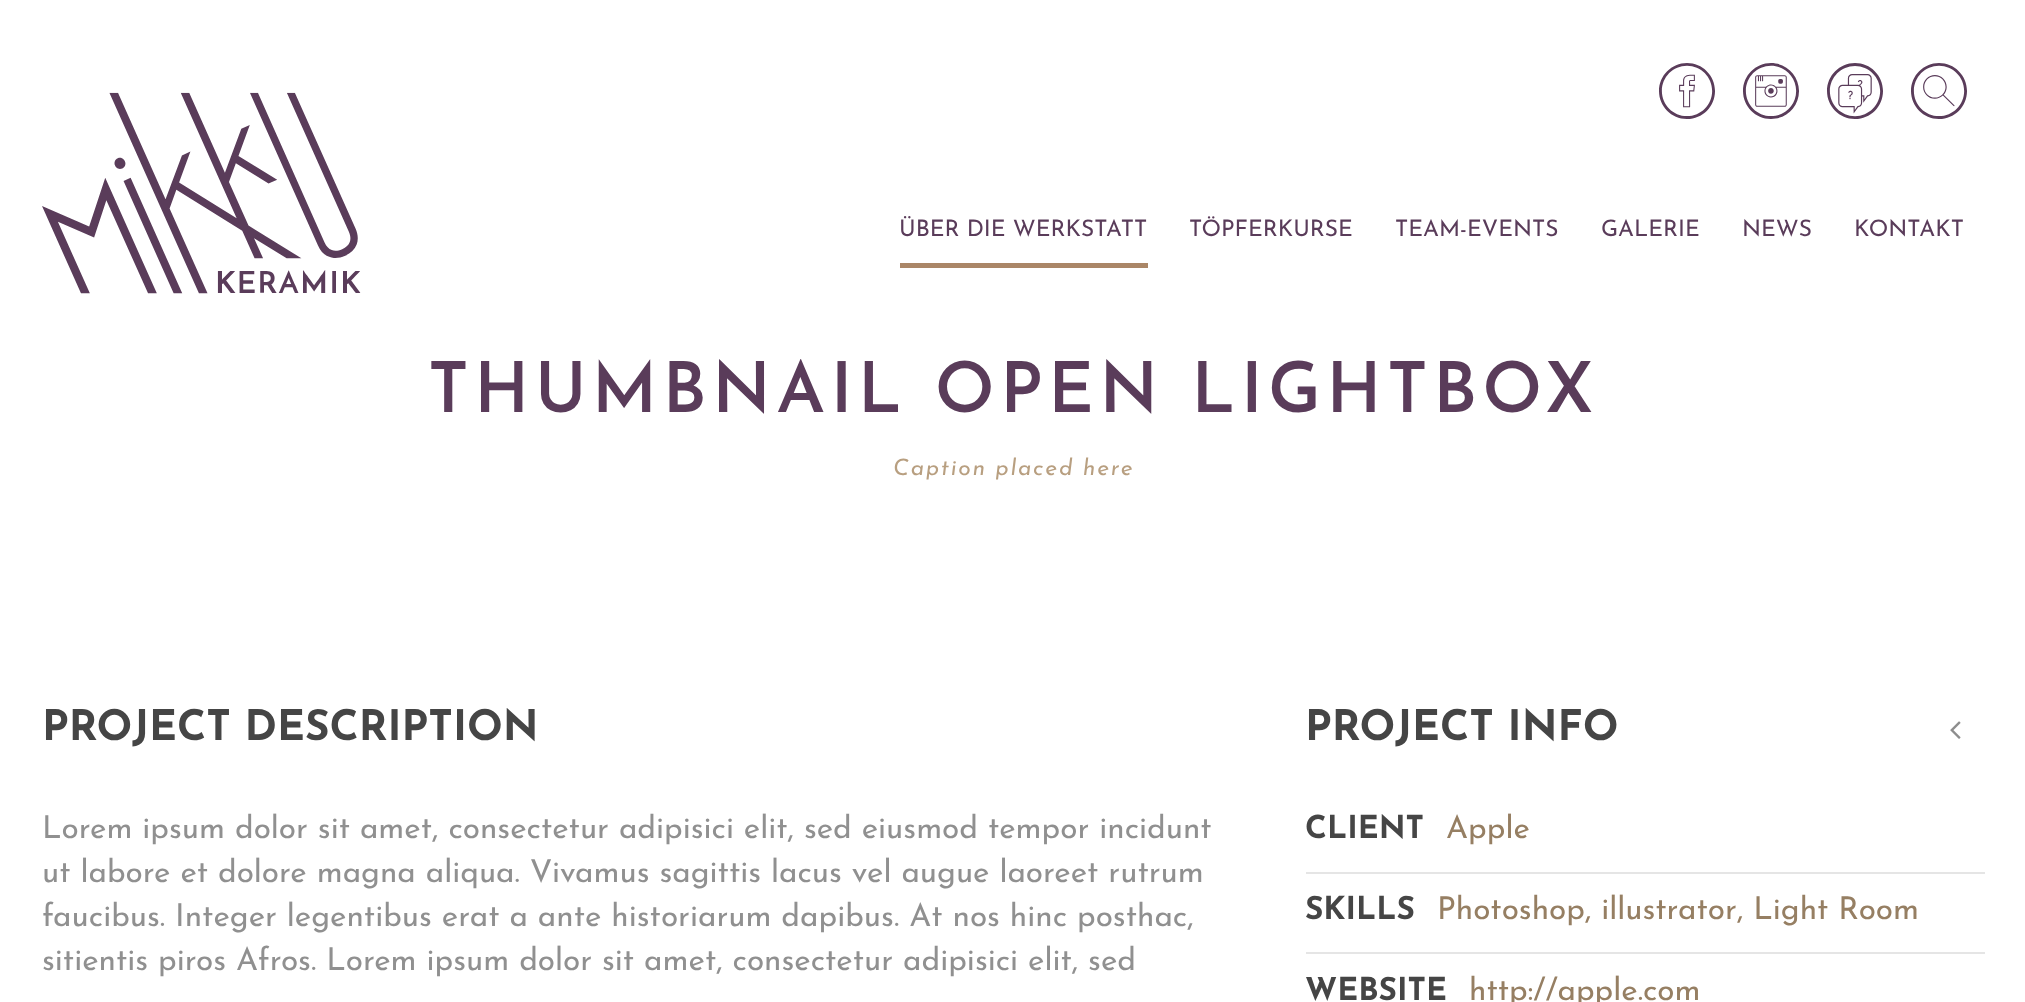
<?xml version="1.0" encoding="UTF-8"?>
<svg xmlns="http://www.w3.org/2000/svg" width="2025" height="1002">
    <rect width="100%" height="100%" fill="#FFFFFF"/>
    <image x="42" y="92" width="319" height="202" href="img_01.png"/>
    <image x="1659" y="63" width="56" height="56" href="img_02.png"/>
    <image x="1743" y="63" width="56" height="56" href="img_03.png"/>
    <image x="1827" y="63" width="56" height="56" href="img_04.png"/>
    <image x="1911" y="63" width="56" height="56" href="img_05.png"/>
    <text x="899" y="236" font-family="Josefin Sans" font-size="22.75" fill="#5A3C5A">ÜBER DIE WERKSTATT</text>
    <text x="1189" y="236" font-family="Josefin Sans" font-size="22.75" fill="#5A3C5A">TÖPFERKURSE</text>
    <text x="1395" y="236" font-family="Josefin Sans" font-size="22.75" fill="#5A3C5A">TEAM-EVENTS</text>
    <text x="1601" y="236" font-family="Josefin Sans" font-size="22.75" fill="#5A3C5A">GALERIE</text>
    <text x="1742" y="236" font-family="Josefin Sans" font-size="22.75" fill="#5A3C5A">NEWS</text>
    <text x="1854" y="236" font-family="Josefin Sans" font-size="22.75" fill="#5A3C5A">KONTAKT</text>
    <rect x="900" y="263" width="248" height="5" fill="#AA8667"/>
    <text x="428" y="412" font-family="Josefin Sans" font-size="70" font-weight="600" letter-spacing="5.25" fill="#5A3C5A">THUMBNAIL OPEN LIGHTBOX</text>
    <text x="893" y="475" font-family="Josefin Sans" font-size="22.75" font-style="italic" letter-spacing="1.75" fill="#B89F80">Caption placed here</text>
    <text x="42" y="740" font-family="Josefin Sans" font-size="42" font-weight="700" fill="#454545">PROJECT DESCRIPTION</text>
    <text font-family="Josefin Sans" font-size="31.5" fill="#909090">
        <tspan x="42" y="838">Lorem ipsum dolor sit amet, consectetur adipisici elit, sed eiusmod tempor incidunt</tspan>
        <tspan x="42" y="882">ut labore et dolore magna aliqua. Vivamus sagittis lacus vel augue laoreet rutrum</tspan>
        <tspan x="42" y="926">faucibus. Integer legentibus erat a ante historiarum dapibus. At nos hinc posthac,</tspan>
        <tspan x="42" y="970">sitientis piros Afros. Lorem ipsum dolor sit amet, consectetur adipisici elit, sed</tspan>
    </text>
    <text x="1305" y="740" font-family="Josefin Sans" font-size="42" font-weight="700" fill="#454545">PROJECT INFO</text>
    <image x="1950" y="721" width="11" height="18" href="img_06.png"/>
    <rect x="1306" y="872" width="679" height="2" fill="#E5E5E5"/>
    <text x="1305" y="838" font-family="Josefin Sans" font-size="31.5" font-weight="700" fill="#454545">CLIENT</text>
    <text x="1446" y="838" font-family="Josefin Sans" font-size="31.5" fill="#967F63">Apple</text>
    <rect x="1306" y="952" width="679" height="2" fill="#E5E5E5"/>
    <text x="1305" y="919" font-family="Josefin Sans" font-size="31.5" font-weight="700" fill="#454545">SKILLS</text>
    <text x="1437" y="919" font-family="Josefin Sans" font-size="31.5" fill="#967F63">Photoshop, illustrator, Light Room</text>
    <text x="1305" y="1000" font-family="Josefin Sans" font-size="31.5" font-weight="700" fill="#454545">WEBSITE</text>
    <text x="1469" y="1000" font-family="Josefin Sans" font-size="31.5" fill="#967F63">http://apple.com</text>
</svg>
